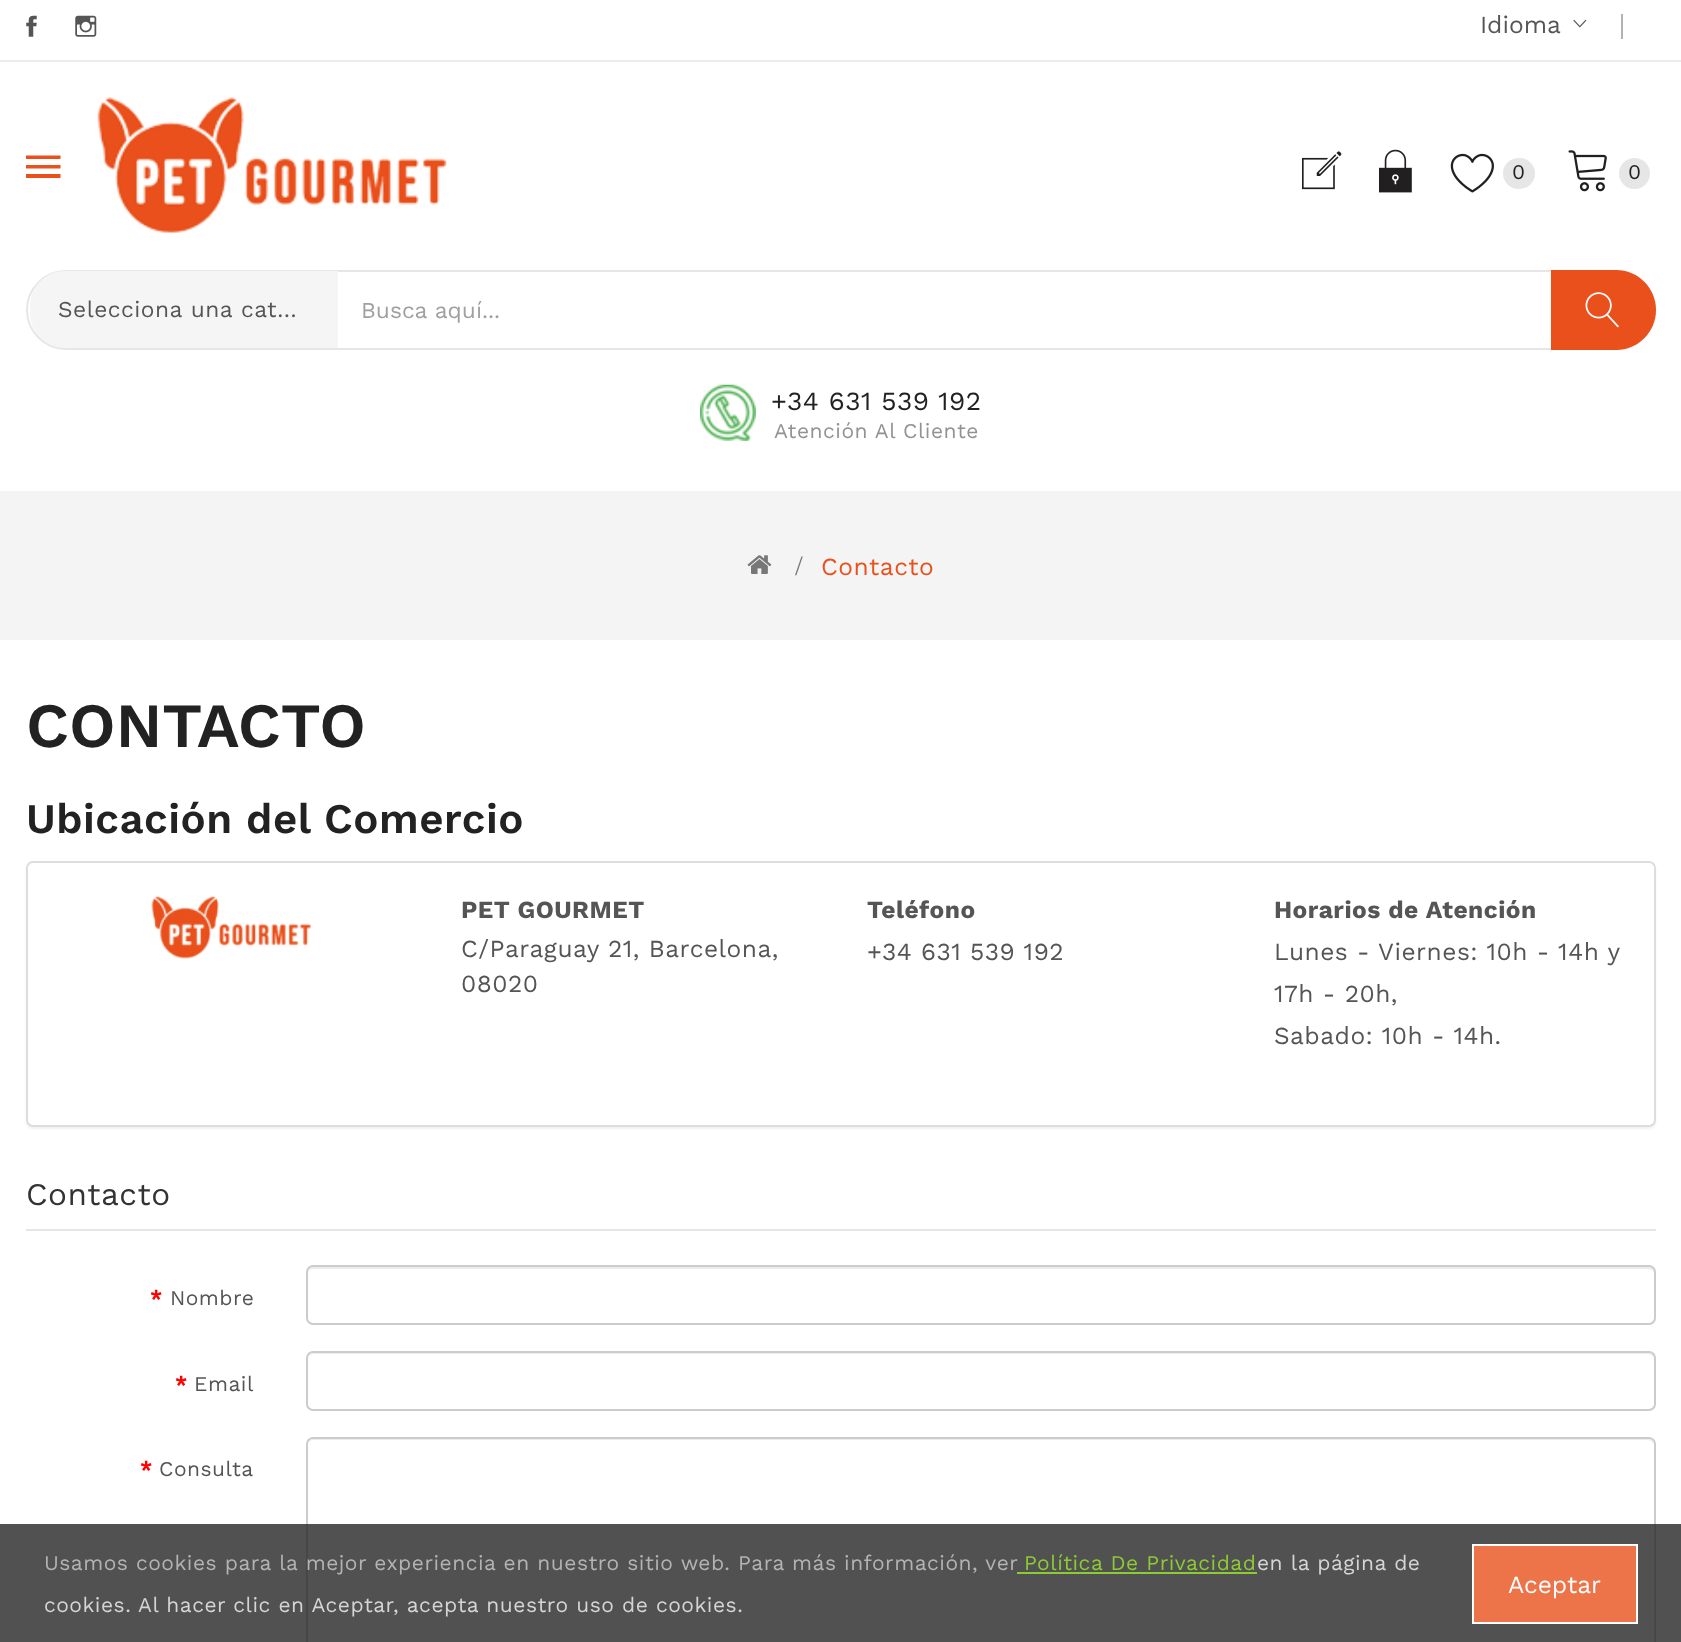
<?xml version="1.0" encoding="UTF-8"?>
<svg xmlns="http://www.w3.org/2000/svg" width="1681" height="1642">
    <defs>
        <filter id="blur1" x="-50%" y="-200%" width="200%" height="500%"><feGaussianBlur stdDeviation="1"/></filter>
    </defs>
    <rect width="100%" height="100%" fill="#FFFFFF"/>
    <rect x="0" y="60" width="1681" height="2" fill="#EDEDED"/>
    <image x="26" y="15" width="11" height="22" href="img_01.png"/>
    <image x="75" y="15" width="22" height="22" href="img_02.png"/>
    <text x="1480" y="33" font-family="Work Sans" font-size="24.5" fill="#555555">Idioma</text>
    <image x="1573" y="19" width="14" height="9" href="img_03.png"/>
    <rect x="1621" y="14" width="2" height="25" fill="#B3B3B3"/>
    <path d="M 26 178 V 174 H 60.5 V 178 Z M 26 168.5 V 165 H 60.5 V 168.5 Z M 26 155.5 H 60.5 V 159 H 26 Z" fill="#E9501C"/>
    <image x="97" y="97" width="350" height="136" href="img_04.png"/>
    <image x="1302" y="151" width="40" height="39" href="img_05.png"/>
    <image x="1379" y="149" width="33" height="44" href="img_06.png"/>
    <image x="1450" y="153" width="44" height="40" href="img_07.png"/>
    <rect x="1503" y="158" width="32" height="31" rx="15.5" fill="#E6E6E6"/>
    <text x="1512" y="179" font-family="Work Sans" font-size="21" letter-spacing="0.5" fill="#222222">0</text>
    <image x="1568" y="150" width="39" height="42" href="img_08.png"/>
    <circle cx="1634.5" cy="173.5" r="15.5" fill="#E6E6E6"/>
    <text x="1628" y="179" font-family="Work Sans" font-size="21" fill="#222222">0</text>
    <rect x="27" y="271" width="1628" height="78" rx="39" fill="none" stroke="#E6E6E6" stroke-width="2"/>
    <path d="M 65 271 H 338 V 348 H 65 C 45.5 348 30 332.5 30 313 V 306 C 30 286.5 45.5 271 65 271 Z" fill="#F5F5F5"/>
    <text x="58" y="317" font-family="Work Sans" font-size="22.75" letter-spacing="0.5" fill="#555555">Selecciona una cat…</text>
    <text x="361" y="318" font-family="Work Sans" font-size="22.75" fill="#A0A0A0">Busca aquí...</text>
    <path d="M 1551 270 H 1616 C 1638 270 1656 288 1656 310 C 1656 332 1638 350 1616 350 H 1551 Z" fill="#E9501C"/>
    <image x="1585" y="292" width="34" height="36" href="img_09.png"/>
    <image x="700" y="384" width="56" height="57" href="img_10.png"/>
    <text x="771" y="410" font-family="Work Sans" font-size="26.25" letter-spacing="0.5" fill="#222222">+34 631 539 192</text>
    <text x="774" y="438" font-family="Work Sans" font-size="21" letter-spacing="0.5" fill="#929292">Atención Al Cliente</text>
    <rect x="0" y="491" width="1681" height="149" fill="#F4F4F4"/>
    <image x="747" y="555" width="25" height="19" href="img_11.png"/>
    <text x="795" y="575" font-family="Liberation Serif" font-size="28" letter-spacing="0.5" fill="#777777">/</text>
    <text x="821" y="575" font-family="Work Sans" font-size="24.5" letter-spacing="0.5" fill="#E9501C">Contacto</text>
    <text x="26" y="747" font-family="Work Sans" font-size="63" font-weight="600" fill="#222222">CONTACTO</text>
    <text x="26" y="833" font-family="Work Sans" font-size="42" font-weight="600" letter-spacing="0.5" fill="#222222">Ubicación del Comercio</text>
    <rect x="26" y="863" width="1630" height="266" rx="7" fill="#000000" fill-opacity="0.05" filter="url(#blur1)"/>
    <rect x="27" y="862" width="1628" height="264" rx="6" fill="#FFFFFF" stroke="#DDDDDD" stroke-width="2"/>
    <image x="151" y="896" width="160" height="63" href="img_12.png"/>
    <text x="461" y="918" font-family="Work Sans" font-size="24.5" font-weight="700" letter-spacing="0.5" fill="#555555">PET GOURMET</text>
    <text font-family="Work Sans" font-size="24.5" letter-spacing="0.5" fill="#555555">
        <tspan x="461" y="957">C/Paraguay 21, Barcelona,</tspan>
        <tspan x="461" y="992">08020</tspan>
    </text>
    <text x="867" y="918" font-family="Work Sans" font-size="24.5" font-weight="700" letter-spacing="0.5" fill="#555555">Teléfono</text>
    <text x="867" y="960" font-family="Work Sans" font-size="24.5" letter-spacing="0.5" fill="#555555">+34 631 539 192</text>
    <text x="1274" y="918" font-family="Work Sans" font-size="24.5" font-weight="700" letter-spacing="0.5" fill="#555555">Horarios de Atención</text>
    <text font-family="Work Sans" font-size="24.5" letter-spacing="0.5" fill="#555555">
        <tspan x="1274" y="960">Lunes - Viernes: 10h - 14h y</tspan>
        <tspan x="1274" y="1002">17h - 20h,</tspan>
        <tspan x="1274" y="1044">Sabado: 10h - 14h.</tspan>
    </text>
    <rect x="26" y="1229" width="1630" height="2" fill="#E5E5E5"/>
    <text x="26" y="1205" font-family="Work Sans" font-size="31.5" letter-spacing="0.5" fill="#333333">Contacto</text>
    <text x="150" y="1305" font-family="Work Sans" font-size="21" font-weight="700" letter-spacing="0.5" fill="#FF0000">*</text>
    <text x="170" y="1305" font-family="Work Sans" font-size="21" letter-spacing="0.5" fill="#555555">Nombre</text>
    <path d="M 313 1269 H 1648 C 1651 1269 1654 1271 1654 1274 C 1654 1271 1653 1267 1649 1267 H 313 C 309 1267 308 1271 308 1274 C 308 1271 310 1269 313 1269 Z" fill="#ECECEC"/>
    <rect x="307" y="1266" width="1348" height="58" rx="6" fill="none" stroke="#CCCCCC" stroke-width="2"/>
    <text x="175" y="1391" font-family="Work Sans" font-size="21" font-weight="700" letter-spacing="0.5" fill="#FF0000">*</text>
    <text x="194" y="1391" font-family="Work Sans" font-size="21" letter-spacing="0.5" fill="#555555">Email</text>
    <path d="M 313 1354 H 1648 C 1651 1354 1654 1357 1654 1360 C 1654 1357 1653 1353 1649 1353 H 313 C 309 1353 308 1357 308 1360 C 308 1357 310 1354 313 1354 Z" fill="#ECECEC"/>
    <rect x="307" y="1352" width="1348" height="58" rx="6" fill="none" stroke="#CCCCCC" stroke-width="2"/>
    <text x="140" y="1476" font-family="Work Sans" font-size="21" font-weight="700" letter-spacing="0.5" fill="#FF0000">*</text>
    <text x="159" y="1476" font-family="Work Sans" font-size="21" letter-spacing="0.5" fill="#555555">Consulta</text>
    <path d="M 313 1440 H 1648 C 1651 1440 1654 1443 1654 1446 C 1654 1443 1653 1439 1649 1439 H 313 C 309 1439 308 1443 308 1446 C 308 1443 310 1440 313 1440 Z" fill="#ECECEC"/>
    <rect x="307" y="1438" width="1348" height="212" rx="6" fill="none" stroke="#CCCCCC" stroke-width="2"/>
    <rect x="0" y="1524" width="1681" height="118" fill="#262626" fill-opacity="0.8"/>
    <text x="44" y="1570" font-family="Work Sans" font-size="21" letter-spacing="0.5" fill="#B3B3B3">Usamos cookies para la mejor experiencia en nuestro sitio web. Para más información, ver</text>
    <text x="1024" y="1570" font-family="Work Sans" font-size="21" letter-spacing="0.5" fill="#8DCB33">Política De Privacidad</text>
    <rect x="1017" y="1572" width="240" height="2" fill="#8DCB33"/>
    <text x="1257" y="1570" font-family="Work Sans" font-size="21" letter-spacing="0.5" fill="#D5D5D5">en la página de</text>
    <text x="44" y="1612" font-family="Work Sans" font-size="21" letter-spacing="0.5" fill="#D5D5D5">cookies. Al hacer clic en Aceptar, acepta nuestro uso de cookies.</text>
    <rect x="1473" y="1545" width="164" height="78" fill="#ED7349" stroke="#FFFFFF" stroke-width="2"/>
    <text x="1508" y="1593" font-family="Work Sans" font-size="24.5" fill="#FFFFFF">Aceptar</text>
</svg>
